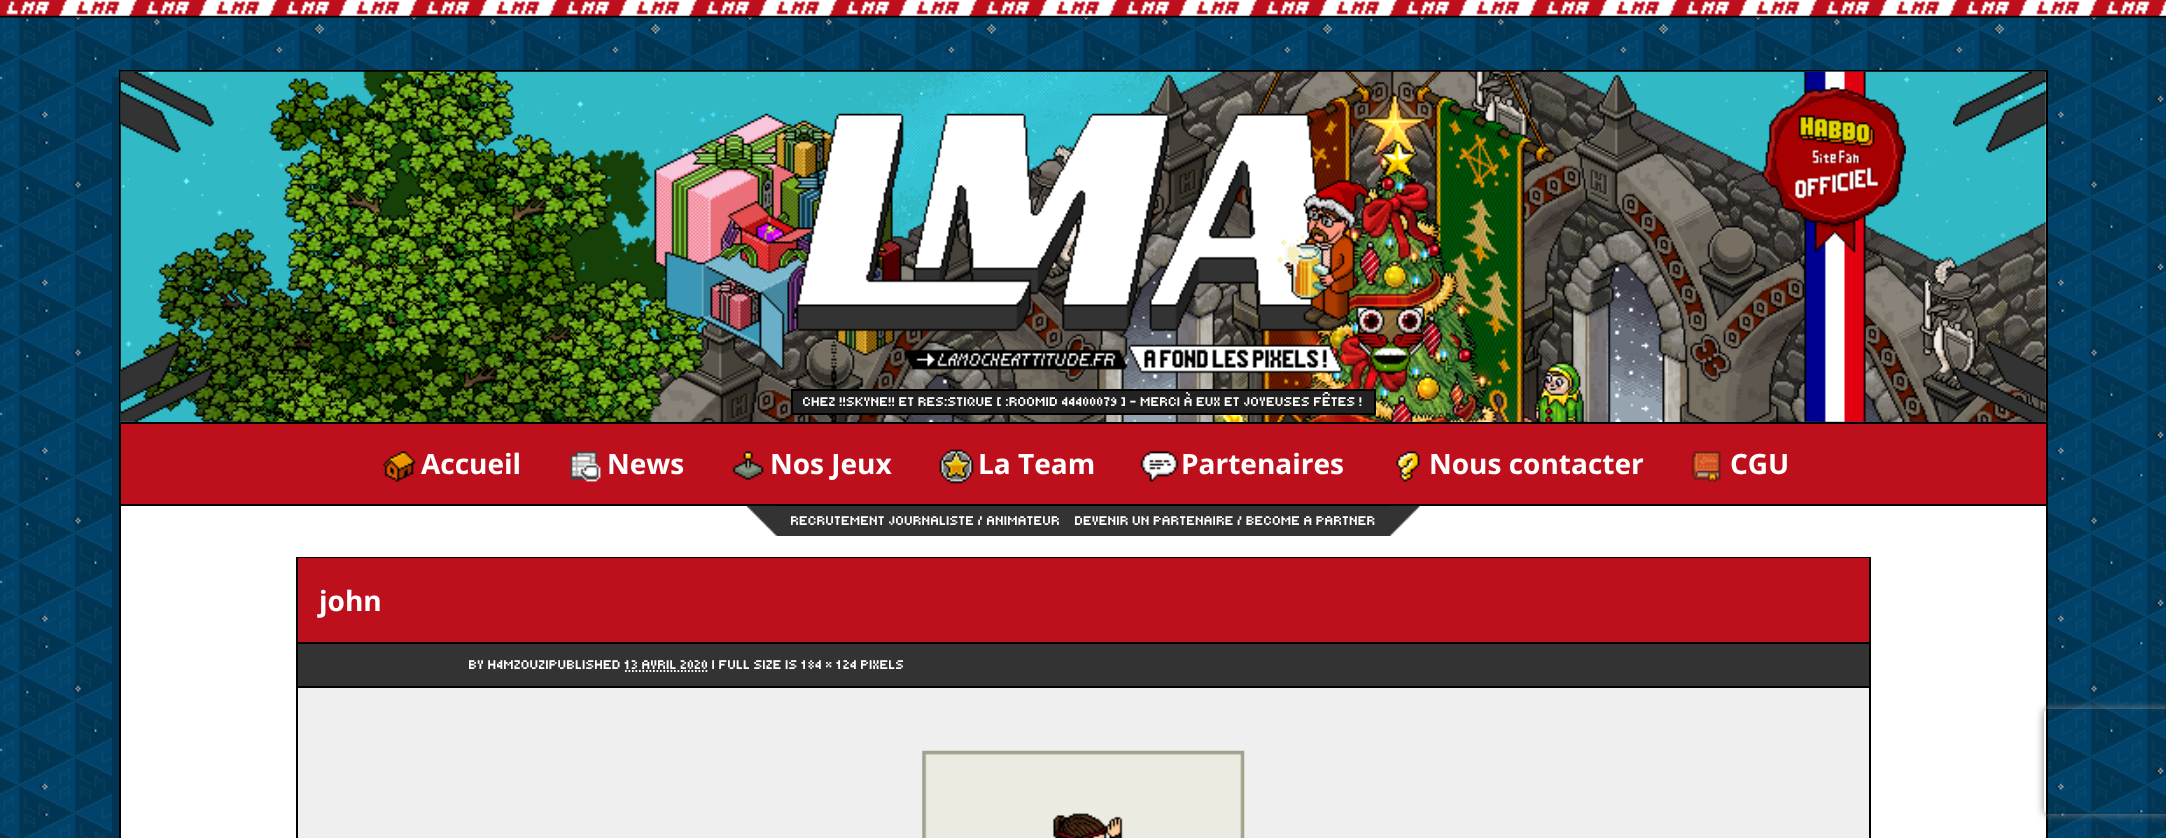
<?xml version="1.0" encoding="UTF-8"?>
<svg xmlns="http://www.w3.org/2000/svg" width="2166" height="838">
    <defs>
        <clipPath id="clip1"><path d="M 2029 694 H 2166 V 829 H 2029 Z M 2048 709 H 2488 C 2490 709 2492 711 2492 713 V 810 C 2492 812 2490 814 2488 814 H 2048 C 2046 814 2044 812 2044 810 V 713 C 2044 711 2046 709 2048 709 Z" clip-rule="evenodd"/></clipPath>
        <filter id="blur1" x="-50%" y="-200%" width="200%" height="500%"><feGaussianBlur stdDeviation="4.5"/></filter>
    </defs>
    <rect width="100%" height="100%" fill="#FFFFFF"/>
    <image x="0" y="0" width="2166" height="838" href="img_01.png"/>
    <path d="M 112 77 V 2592 H 2041 V 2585 H 119 V 77 Z" fill="#003554"/>
    <rect x="120" y="71" width="1927" height="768" fill="#FFFFFF" stroke="#000000" stroke-width="2"/>
    <image x="120" y="71" width="1926" height="353" href="img_02.png"/>
    <rect x="121" y="422" width="1925" height="2" fill="#000000"/>
    <image x="654" y="113" width="771" height="262" href="img_03.png"/>
    <image x="1762" y="71" width="144" height="351" href="img_04.png"/>
    <rect x="793" y="391" width="581" height="22" fill="#222222"/>
    <text x="803" y="406" font-family="'Tiny5'" font-size="14" fill="#FFFFFF">CHEZ !!SKYNE!! ET RES:STIQUE [ :ROOMID 44400079 ] - MERCI À EUX ET JOYEUSES FÊTES !</text>
    <rect x="792" y="390" width="583" height="24" fill="none" stroke="#000000" stroke-width="2"/>
    <rect x="121" y="424" width="1925" height="80" fill="#BE0F1C"/>
    <rect x="121" y="504" width="1925" height="2" fill="#000000"/>
    <image x="382" y="451" width="34" height="31" href="img_05.png"/>
    <text x="421" y="474" font-family="Open Sans" font-size="28" font-weight="700" fill="#FFFFFF">Accueil</text>
    <image x="570" y="451" width="31" height="31" href="img_06.png"/>
    <text x="607" y="474" font-family="Open Sans" font-size="28" font-weight="700" fill="#FFFFFF">News</text>
    <image x="732" y="451" width="32" height="29" href="img_07.png"/>
    <text x="770" y="474" font-family="Open Sans" font-size="28" font-weight="700" fill="#FFFFFF">Nos Jeux</text>
    <image x="939" y="449" width="35" height="35" href="img_08.png"/>
    <text x="978" y="474" font-family="Open Sans" font-size="28" font-weight="700" fill="#FFFFFF">La Team</text>
    <image x="1140" y="451" width="39" height="31" href="img_09.png"/>
    <text x="1181" y="474" font-family="Open Sans" font-size="28" font-weight="700" fill="#FFFFFF">Partenaires</text>
    <image x="1396" y="451" width="24" height="31" href="img_10.png"/>
    <text x="1429" y="474" font-family="Open Sans" font-size="28" font-weight="700" fill="#FFFFFF">Nous contacter</text>
    <image x="1691" y="451" width="30" height="31" href="img_11.png"/>
    <text x="1730" y="474" font-family="Open Sans" font-size="28" font-weight="700" fill="#FFFFFF">CGU</text>
    <rect x="777" y="506" width="613" height="30" fill="#333333"/>
    <image x="747" y="505" width="30" height="31" href="img_12.png"/>
    <text x="791" y="525" font-family="'Tiny5'" font-size="14" fill="#FFFFFF">RECRUTEMENT JOURNALISTE / ANIMATEUR</text>
    <text x="1075" y="525" font-family="'Tiny5'" font-size="14" fill="#FFFFFF">DEVENIR UN PARTENAIRE / BECOME A PARTNER</text>
    <image x="1389" y="505" width="31" height="31" href="img_13.png"/>
    <rect x="298" y="688" width="1571" height="150" fill="#EFEFEF"/>
    <rect x="297" y="558" width="1573" height="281" fill="none" stroke="#000000" stroke-width="2"/>
    <rect x="298" y="558" width="1571" height="84" fill="#BE0F1C"/>
    <rect x="298" y="642" width="1571" height="2" fill="#000000"/>
    <text x="319" y="611" font-family="Open Sans" font-size="28" font-weight="700" fill="#FFFFFF">john</text>
    <rect x="298" y="644" width="1571" height="42" fill="#333333"/>
    <rect x="298" y="686" width="1571" height="2" fill="#000000"/>
    <text x="469" y="669" font-family="'Tiny5'" font-size="14" fill="#FFFFFF">BY H4MZOUZ|PUBLISHED 13 AVRIL 2020 | FULL SIZE IS 184 × 124 PIXELS</text>
    <path d="M 625 671 H 709" fill="none" stroke="#FFFFFF" stroke-width="1.8" stroke-dasharray="1.75 1.75"/>
    <image x="922" y="750" width="323" height="88" href="img_14.png"/>
    <g clip-path="url(#clip1)">
        <rect x="2044" y="709" width="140" height="105" rx="4" fill="#808080" filter="url(#blur1)"/>
    </g>
</svg>
